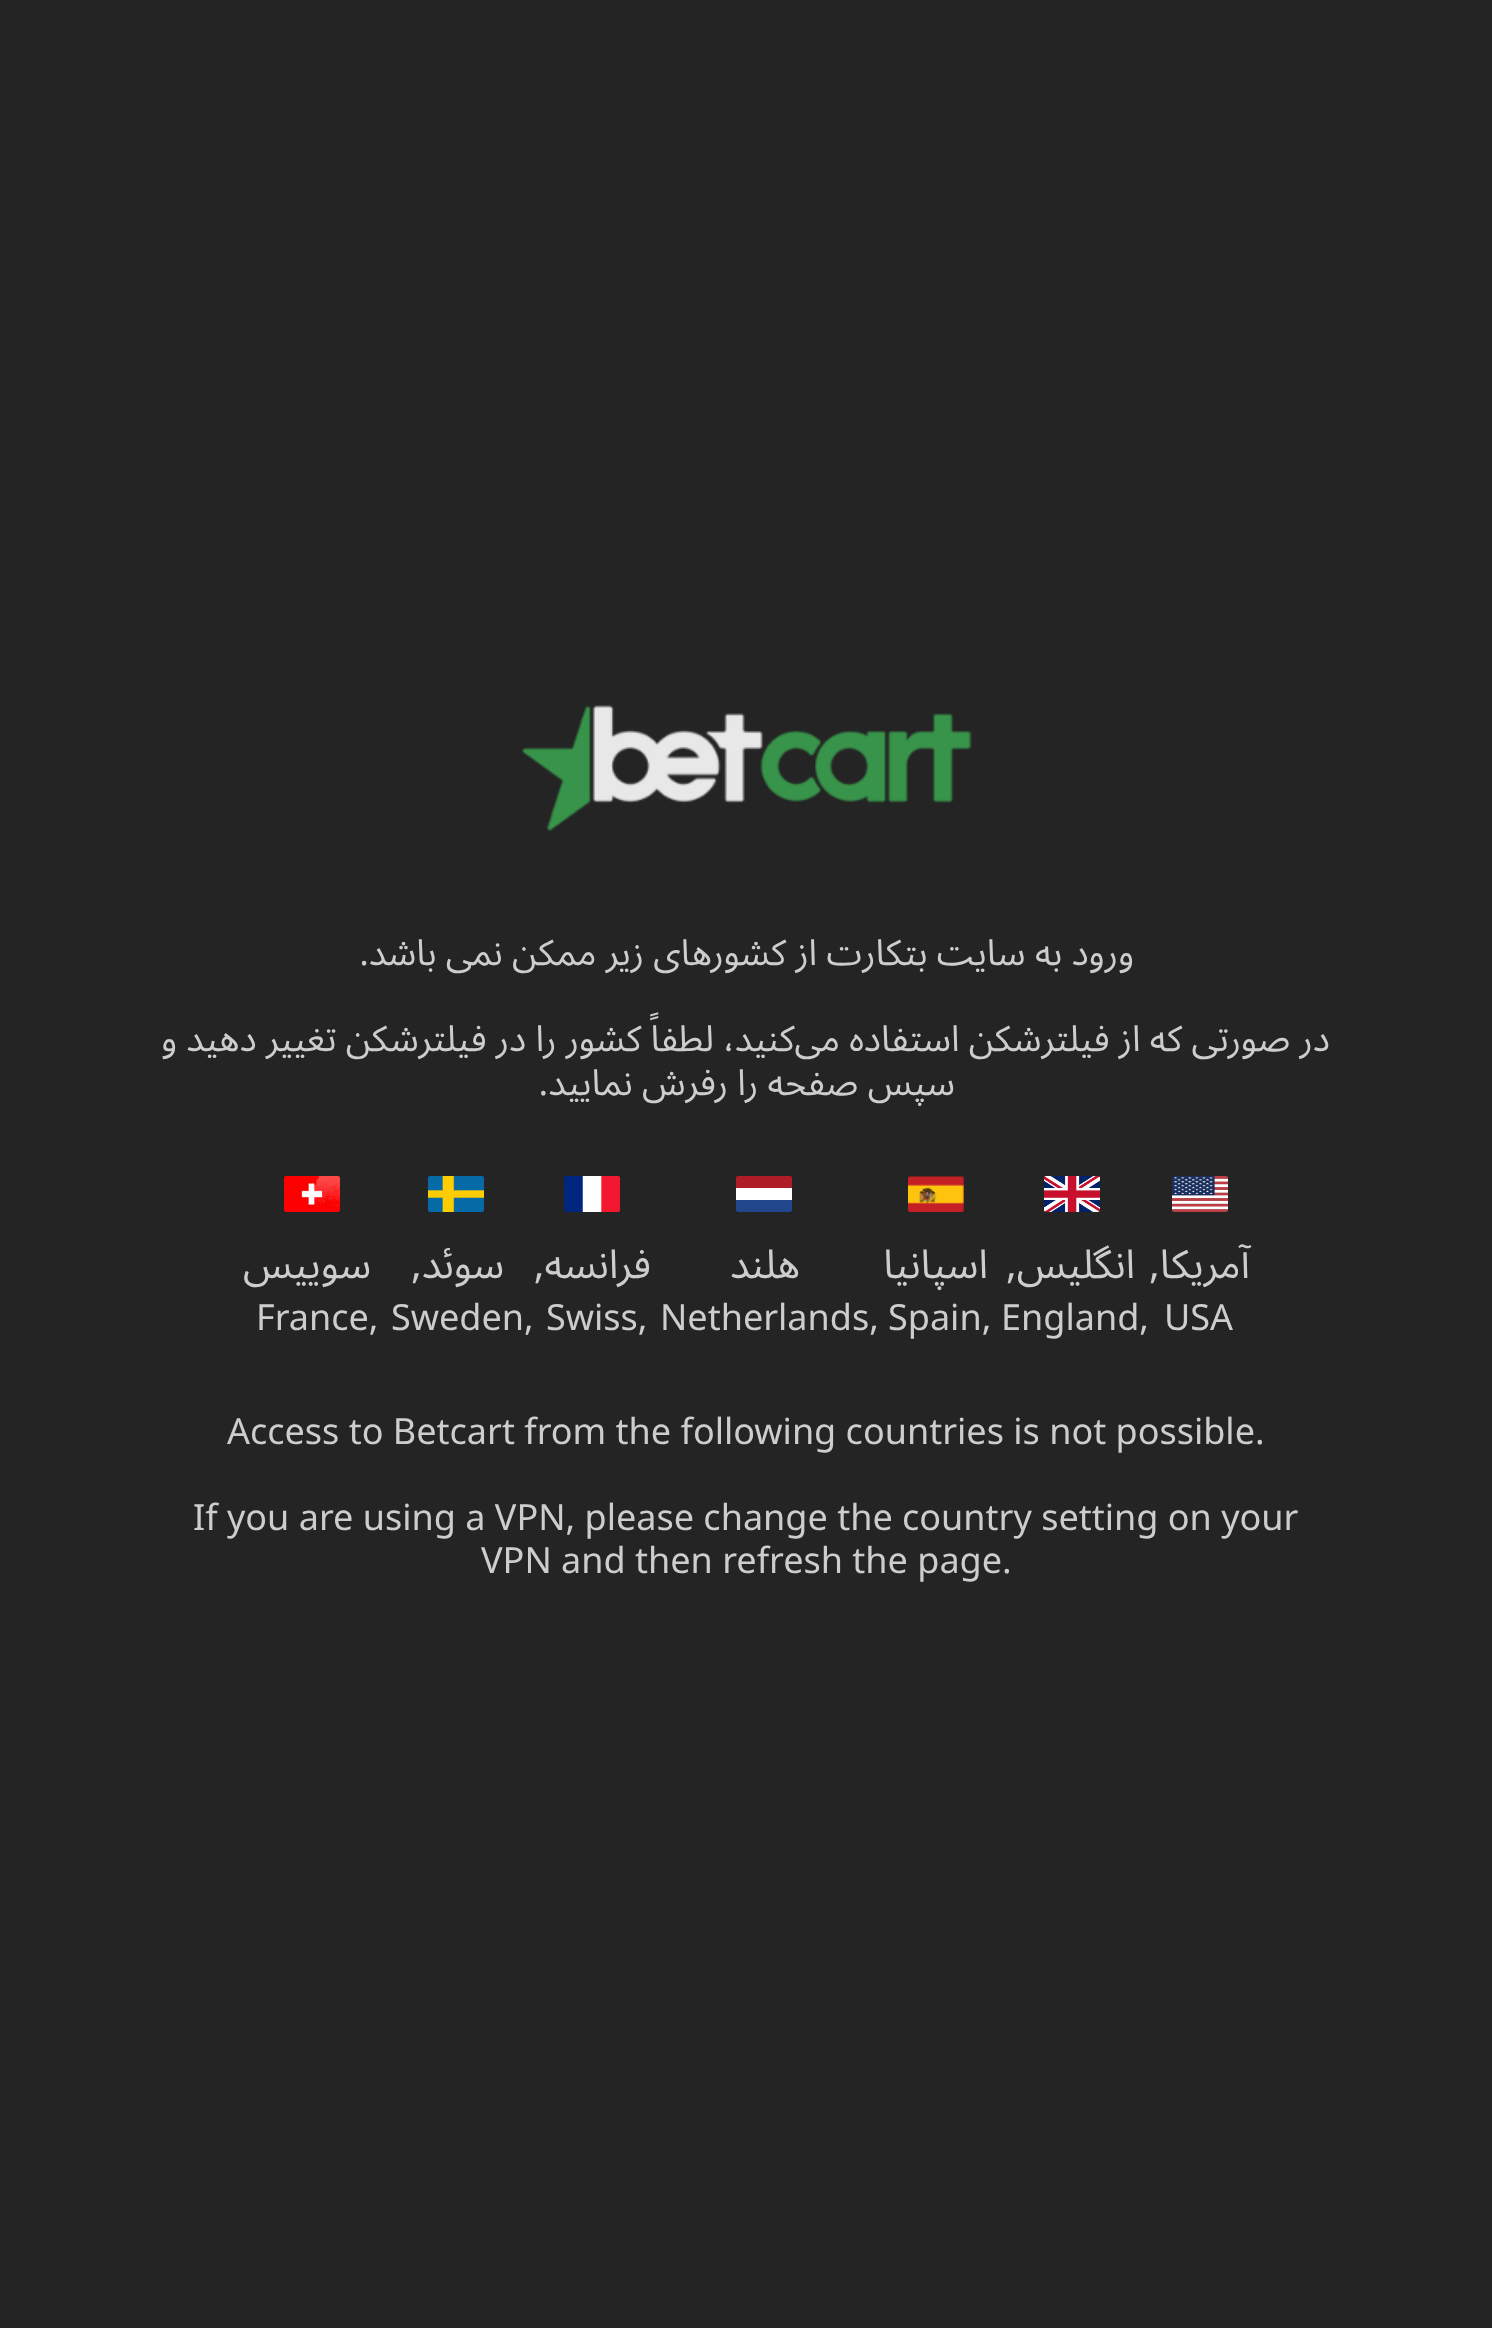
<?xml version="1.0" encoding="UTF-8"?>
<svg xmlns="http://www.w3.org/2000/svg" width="1492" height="2328">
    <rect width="100%" height="100%" fill="#242424"/>
    <image x="521" y="705" width="451" height="127" href="img_01.png"/>
    <text x="1134" y="965" font-family="Noto Sans Arabic" font-size="36" direction="rtl" fill="#CECDCD">ورود به سایت بتکارت از کشورهای زیر ممکن نمی باشد.</text>
    <text x="1330" y="1051" word-spacing="-0.1" font-family="Noto Sans Arabic" font-size="36" direction="rtl" fill="#CECDCD">در صورتی که از فیلترشکن استفاده می‌کنید، لطفاً کشور را در فیلترشکن تغییر دهید و</text>
    <text x="955" y="1095" font-family="Noto Sans Arabic" font-size="36" direction="rtl" fill="#CECDCD">سپس صفحه را رفرش نمایید.</text>
    <image x="284" y="1176" width="56" height="36" href="img_02.png"/>
    <image x="428" y="1176" width="56" height="36" href="img_03.png"/>
    <image x="564" y="1176" width="56" height="36" href="img_04.png"/>
    <image x="736" y="1176" width="56" height="36" href="img_05.png"/>
    <image x="908" y="1176" width="56" height="36" href="img_06.png"/>
    <image x="1044" y="1176" width="56" height="36" href="img_07.png"/>
    <image x="1172" y="1176" width="56" height="36" href="img_08.png"/>
    <text x="371" y="1278" font-family="Noto Sans Arabic" font-size="40" direction="rtl" fill="#CECDCD">سوییس</text>
    <text x="504" y="1278" font-family="Noto Sans Arabic" font-size="40" direction="rtl" fill="#CECDCD">سوئد,</text>
    <text x="651" y="1278" font-family="Noto Sans Arabic" font-size="40" direction="rtl" fill="#CECDCD">فرانسه,</text>
    <text x="800" y="1278" font-family="Noto Sans Arabic" font-size="40" direction="rtl" fill="#CECDCD">هلند</text>
    <text x="988" y="1278" font-family="Noto Sans Arabic" font-size="40" direction="rtl" fill="#CECDCD">اسپانیا</text>
    <text x="1135" y="1278" font-family="Noto Sans Arabic" font-size="40" direction="rtl" fill="#CECDCD">انگلیس,</text>
    <text x="1250" y="1278" font-family="Noto Sans Arabic" font-size="40" direction="rtl" fill="#CECDCD">آمریکا,</text>
    <text x="256" y="1330" font-family="Noto Sans Arabic" font-size="36" fill="#CECDCD">France,</text>
    <text x="391" y="1330" font-family="Noto Sans Arabic" font-size="36" fill="#CECDCD">Sweden,</text>
    <text x="546" y="1330" font-family="Noto Sans Arabic" font-size="36" fill="#CECDCD">Swiss,</text>
    <text x="660" y="1330" font-family="Noto Sans Arabic" font-size="36" fill="#CECDCD">Netherlands,</text>
    <text x="888" y="1330" font-family="Noto Sans Arabic" font-size="36" fill="#CECDCD">Spain,</text>
    <text x="1001" y="1330" font-family="Noto Sans Arabic" font-size="36" fill="#CECDCD">England,</text>
    <text x="1164" y="1330" font-family="Noto Sans Arabic" font-size="36" fill="#CECDCD">USA</text>
    <text x="227" y="1444" font-family="Noto Sans Arabic" font-size="36" fill="#CECDCD">Access to Betcart from the following countries is not possible.</text>
    <text x="193" y="1530" font-family="Noto Sans Arabic" font-size="36" fill="#CECDCD">If you are using a VPN, please change the country setting on your</text>
    <text x="481" y="1573" font-family="Noto Sans Arabic" font-size="36" fill="#CECDCD">VPN and then refresh the page.</text>
</svg>
